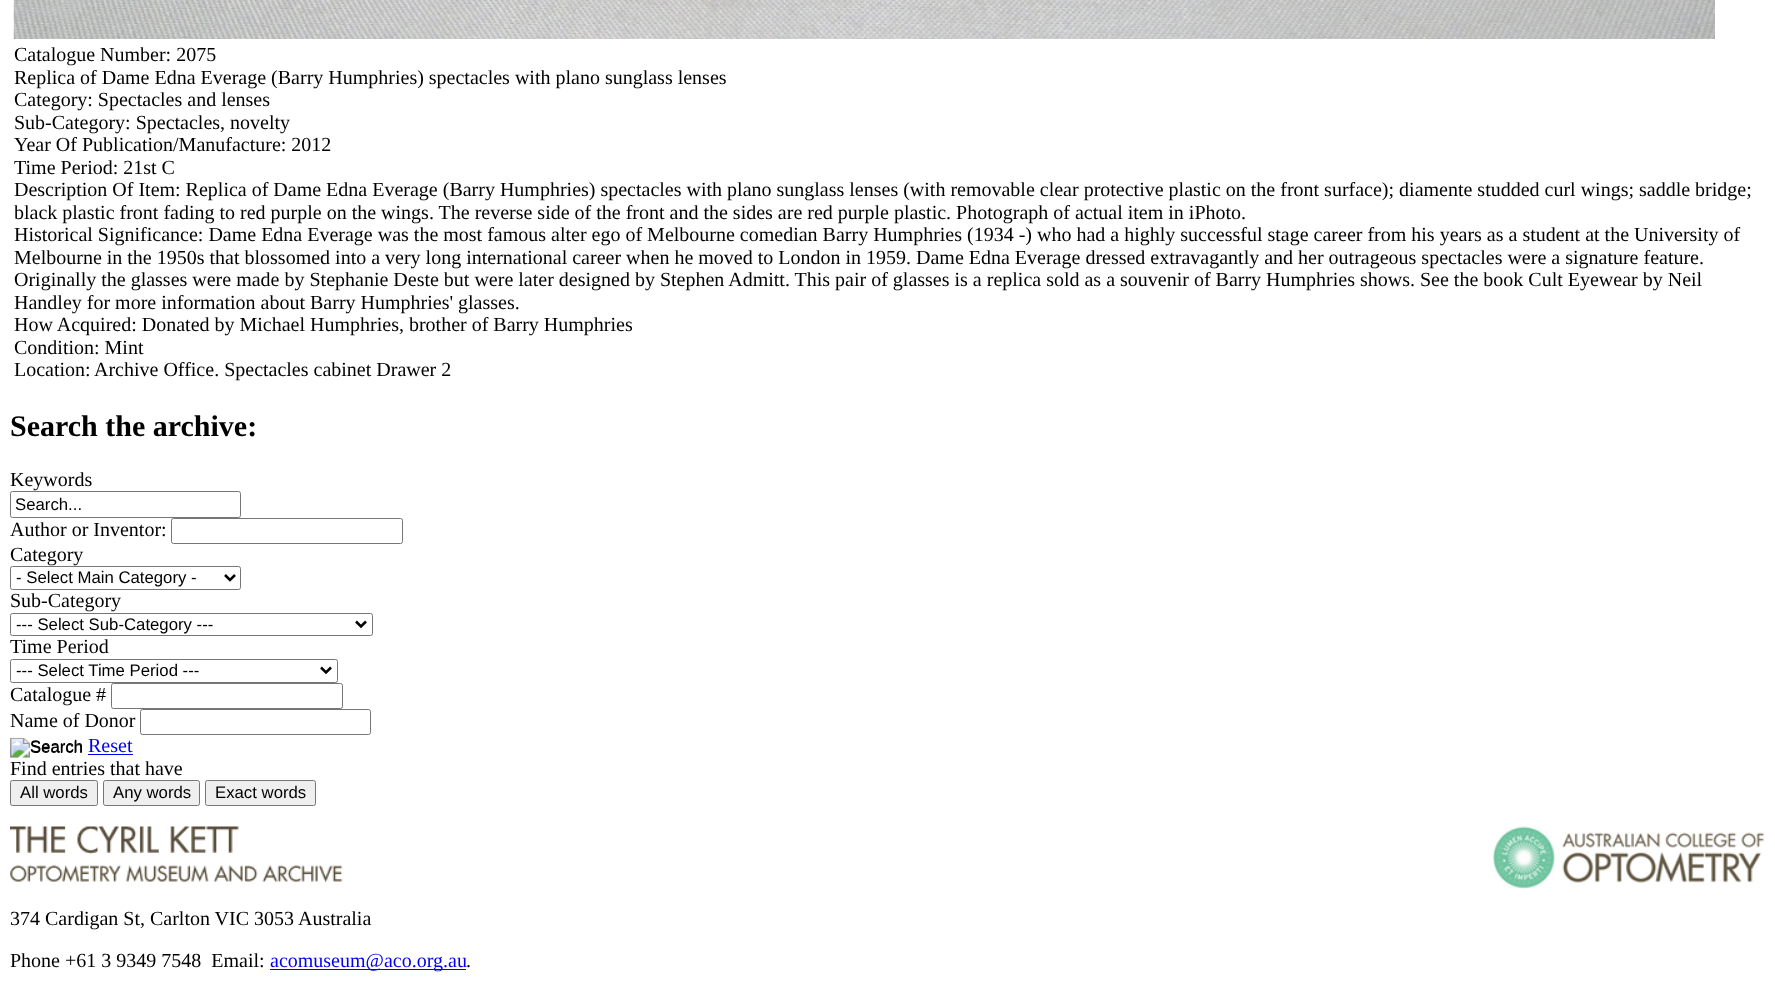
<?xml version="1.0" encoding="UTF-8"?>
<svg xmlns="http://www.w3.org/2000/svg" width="1775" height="992">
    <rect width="100%" height="100%" fill="#FFFFFF"/>
    <image x="13" y="0" width="1702" height="39" href="img_01.png"/>
    <text font-family="Liberation Serif" font-size="20" fill="#000000">
        <tspan x="14" y="61">Catalogue Number: 2075</tspan>
        <tspan x="14" y="84">Replica of Dame Edna Everage (Barry Humphries) spectacles with plano sunglass lenses</tspan>
        <tspan x="14" y="106">Category: Spectacles and lenses</tspan>
        <tspan x="14" y="129">Sub-Category: Spectacles, novelty</tspan>
        <tspan x="14" y="151">Year Of Publication/Manufacture: 2012</tspan>
        <tspan x="14" y="174">Time Period: 21st C</tspan>
        <tspan x="14" y="196">Description Of Item: Replica of Dame Edna Everage (Barry Humphries) spectacles with plano sunglass lenses (with removable clear protective plastic on the front surface); diamente studded curl wings; saddle bridge;</tspan>
        <tspan x="14" y="219">black plastic front fading to red purple on the wings. The reverse side of the front and the sides are red purple plastic. Photograph of actual item in iPhoto.</tspan>
        <tspan x="14" y="241">Historical Significance: Dame Edna Everage was the most famous alter ego of Melbourne comedian Barry Humphries (1934 -) who had a highly successful stage career from his years as a student at the University of</tspan>
        <tspan x="14" y="264">Melbourne in the 1950s that blossomed into a very long international career when he moved to London in 1959. Dame Edna Everage dressed extravagantly and her outrageous spectacles were a signature feature.</tspan>
        <tspan x="14" y="286">Originally the glasses were made by Stephanie Deste but were later designed by Stephen Admitt. This pair of glasses is a replica sold as a souvenir of Barry Humphries shows. See the book Cult Eyewear by Neil</tspan>
        <tspan x="14" y="309">Handley for more information about Barry Humphries' glasses.</tspan>
        <tspan x="14" y="331">How Acquired: Donated by Michael Humphries, brother of Barry Humphries</tspan>
        <tspan x="14" y="354">Condition: Mint</tspan>
        <tspan x="14" y="376">Location:</tspan>
    </text>
    <text x="94" y="376" font-family="Liberation Serif" font-size="20" fill="#000000">Archive Office. Spectacles cabinet Drawer 2</text>
    <text x="10" y="436" font-family="Liberation Serif" font-size="30" font-weight="700" fill="#000000">Search the archive:</text>
    <text x="10" y="486" font-family="Liberation Serif" font-size="20" fill="#000000">Keywords</text>
    <rect x="10.5" y="491.5" width="230" height="26" rx="2" fill="none" stroke="#767676"/>
    <text x="15" y="510" font-family="Liberation Sans" font-size="16.75" fill="#000000">Search...</text>
    <text x="10" y="536" font-family="Liberation Serif" font-size="20" fill="#000000">Author or Inventor:</text>
    <rect x="171.5" y="518.5" width="231" height="25" rx="2" fill="none" stroke="#767676"/>
    <text x="10" y="561" font-family="Liberation Serif" font-size="20" fill="#000000">Category</text>
    <rect x="10.5" y="566.5" width="230" height="23" rx="2" fill="none" stroke="#767676"/>
    <path d="M 225 575 L 230 580 L 235 575" fill="none" stroke="#000000" stroke-width="2.5"/>
    <text x="16" y="583" font-family="Liberation Sans" font-size="16.75" fill="#000000">- Select Main Category -</text>
    <text x="10" y="607" font-family="Liberation Serif" font-size="20" fill="#000000">Sub-Category</text>
    <rect x="10.5" y="613.5" width="362" height="22" rx="2" fill="none" stroke="#767676"/>
    <path d="M 356 621.5 L 361 626.5 L 366 621.5" fill="none" stroke="#000000" stroke-width="2.5"/>
    <text x="16" y="630" font-family="Liberation Sans" font-size="16.75" fill="#000000">--- Select Sub-Category ---</text>
    <text x="10" y="653" font-family="Liberation Serif" font-size="20" fill="#000000">Time Period</text>
    <rect x="10.5" y="659.5" width="327" height="23" rx="2" fill="none" stroke="#767676"/>
    <path d="M 321 667.5 L 326 672.5 L 331 667.5" fill="none" stroke="#000000" stroke-width="2.5"/>
    <text x="16" y="676" font-family="Liberation Sans" font-size="16.75" fill="#000000">--- Select Time Period ---</text>
    <text x="10" y="701" font-family="Liberation Serif" font-size="20" fill="#000000">Catalogue #</text>
    <rect x="111.5" y="683.5" width="231" height="25" rx="2" fill="none" stroke="#767676"/>
    <text x="10" y="727" font-family="Liberation Serif" font-size="20" fill="#000000">Name of Donor</text>
    <rect x="140.5" y="709.5" width="230" height="25" rx="2" fill="none" stroke="#767676"/>
    <image x="10" y="737" width="72" height="21" href="img_02.png"/>
    <text x="30" y="752" font-family="Liberation Sans" font-size="16.75" fill="#000000">Search</text>
    <text x="88" y="752" font-family="Liberation Serif" font-size="20" fill="#0000EE">Reset</text>
    <rect x="88" y="754" width="45" height="1" fill="#0000EE"/>
    <text x="10" y="775" font-family="Liberation Serif" font-size="20" fill="#000000">Find entries that have</text>
    <rect x="10.5" y="780.5" width="87" height="25" rx="2" fill="#EFEFEF" stroke="#767676"/>
    <text x="20" y="798" font-family="Liberation Sans" font-size="16.75" fill="#000000">All words</text>
    <rect x="103.5" y="780.5" width="96" height="25" rx="2" fill="#EFEFEF" stroke="#767676"/>
    <text x="113" y="798" font-family="Liberation Sans" font-size="16.75" fill="#000000">Any words</text>
    <rect x="205.5" y="780.5" width="110" height="25" rx="2" fill="#EFEFEF" stroke="#767676"/>
    <text x="215" y="798" font-family="Liberation Sans" font-size="16.75" fill="#000000">Exact words</text>
    <image x="10" y="826" width="333" height="57" href="img_03.png"/>
    <image x="1492" y="826" width="273" height="63" href="img_04.png"/>
    <text x="10" y="925" font-family="Liberation Serif" font-size="20" fill="#000000">374 Cardigan St, Carlton VIC 3053 Australia</text>
    <text x="10" y="967" font-family="Liberation Serif" font-size="20" fill="#000000" xml:space="preserve">Phone +61 3 9349 7548  Email:</text>
    <rect x="270" y="969" width="196" height="1" fill="#0000EE"/>
    <text x="270" y="967" font-family="Liberation Serif" font-size="20" fill="#0000EE">acomuseum@aco.org.au</text>
    <text x="466" y="967" font-family="Liberation Serif" font-size="20" fill="#000000">.</text>
</svg>
